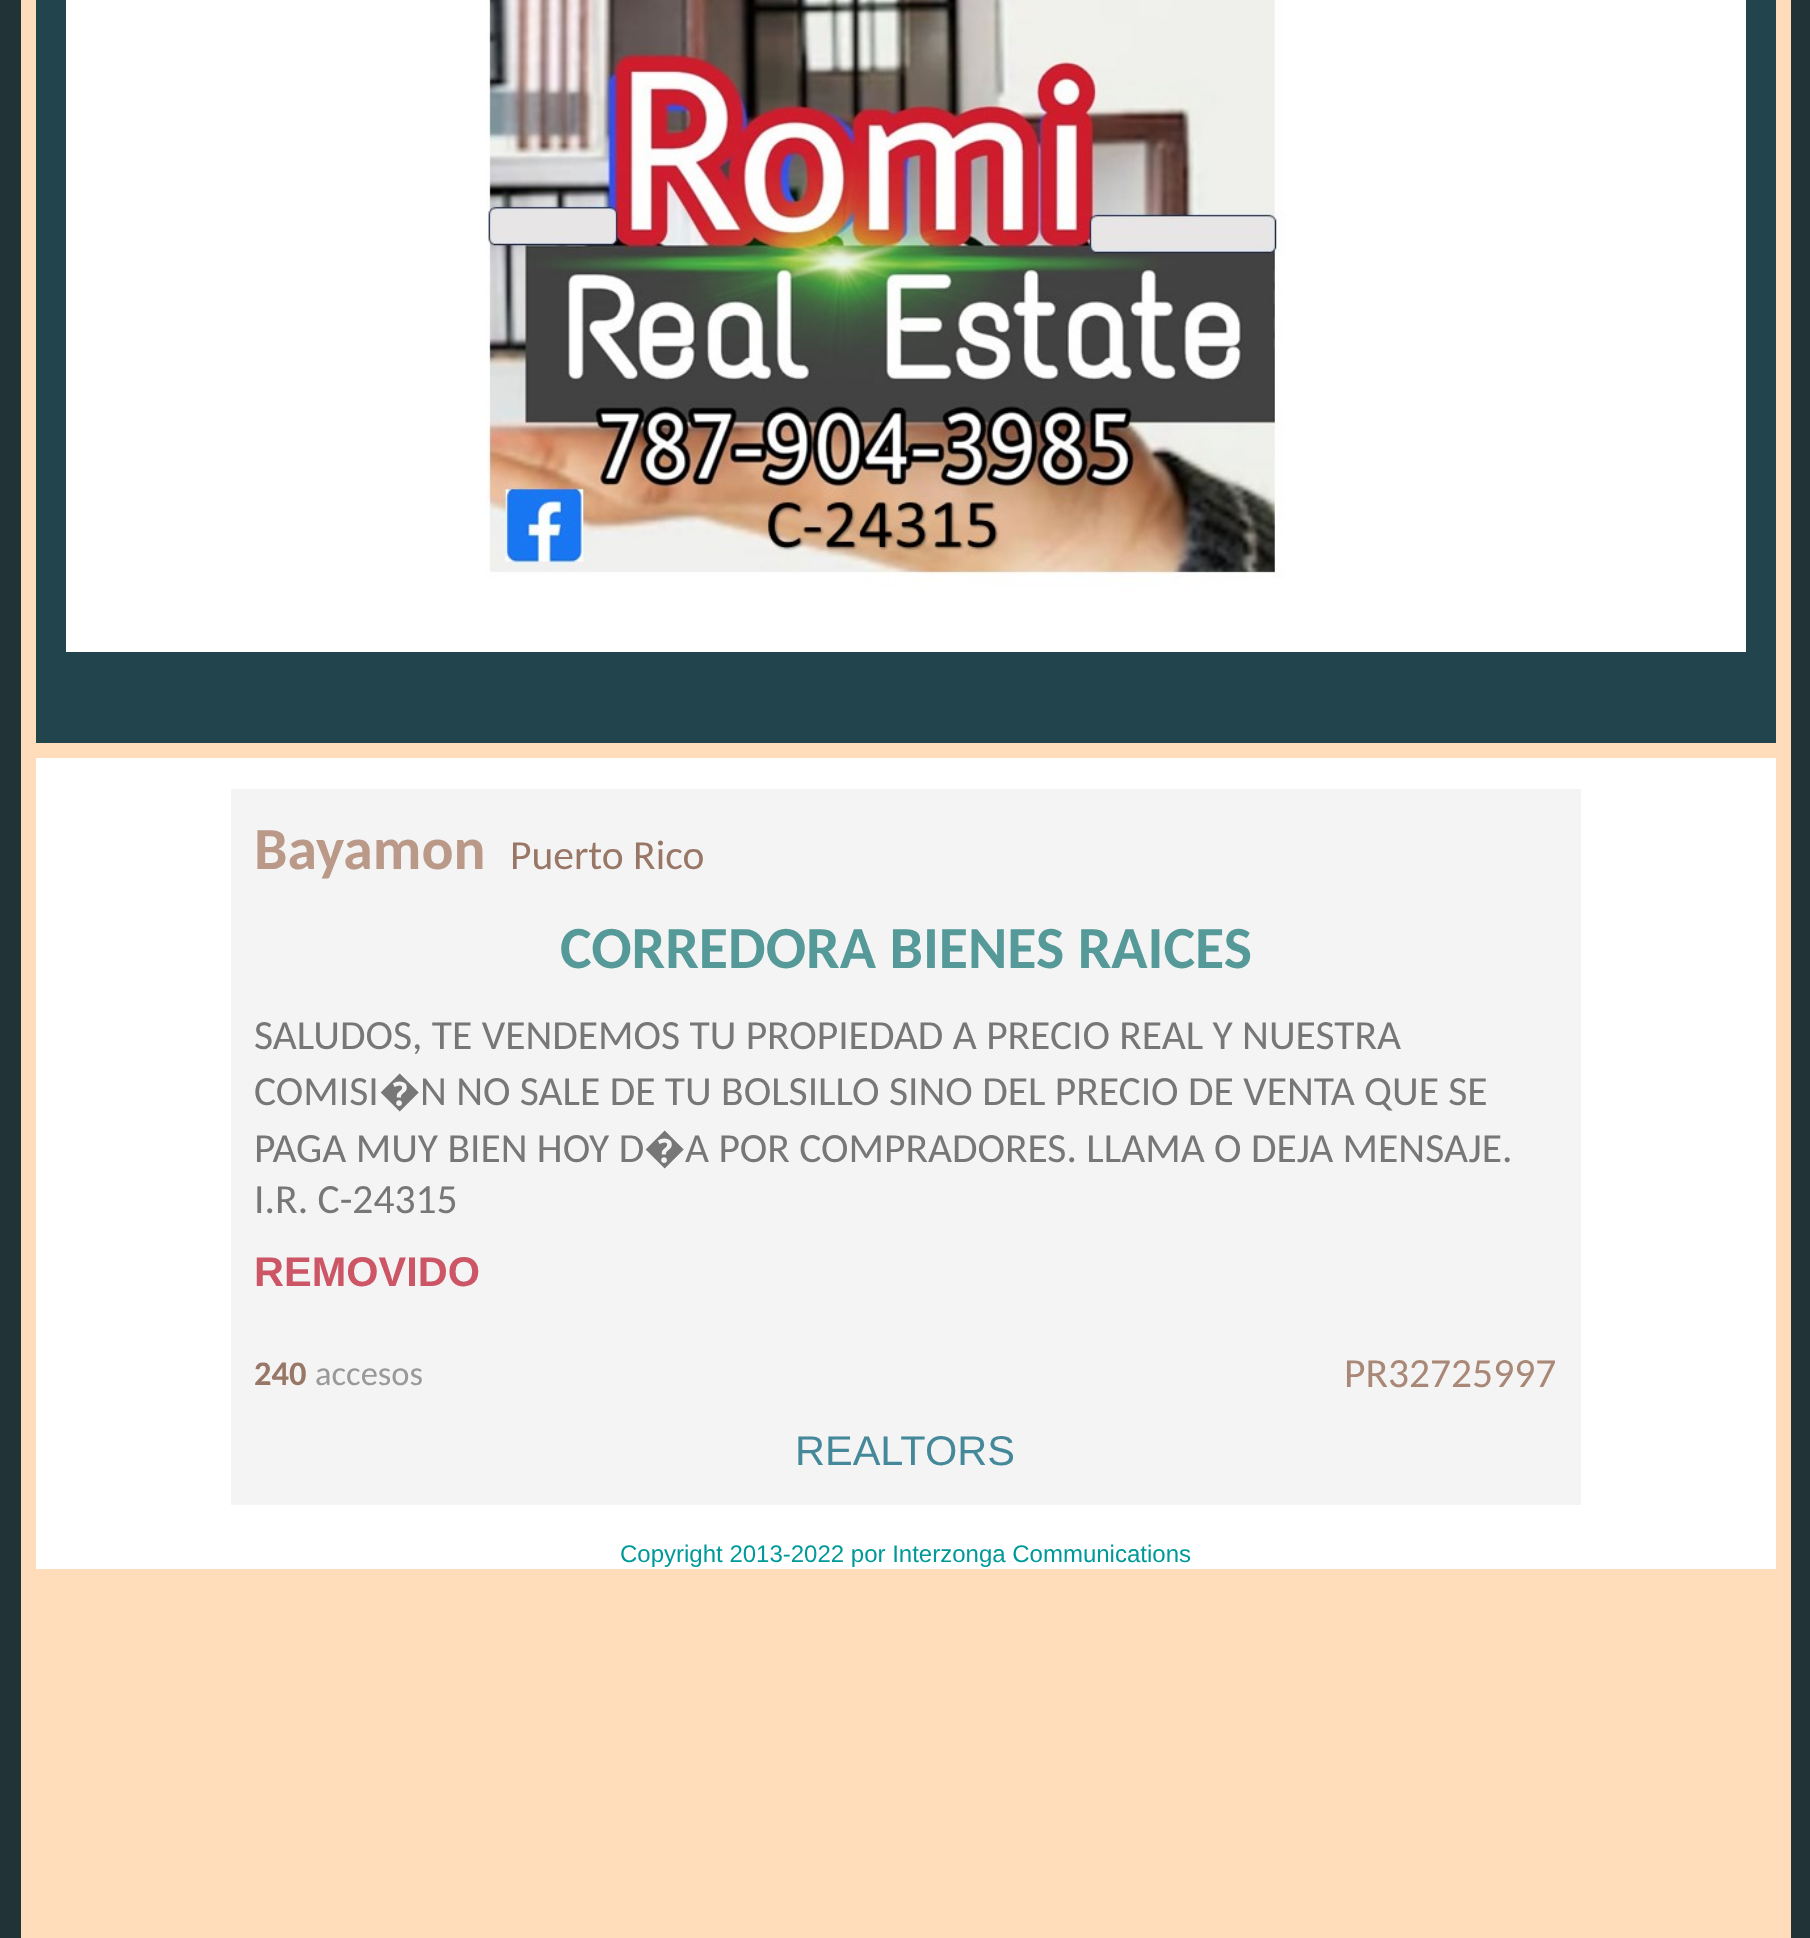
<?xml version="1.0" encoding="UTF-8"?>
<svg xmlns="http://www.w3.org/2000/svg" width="1810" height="1938">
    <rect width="100%" height="100%" fill="#223338"/>
    <rect x="21" y="0" width="1770" height="1938" fill="#FFDDBB"/>
    <rect x="36" y="0" width="1740" height="743" fill="#22444C"/>
    <image x="66" y="0" width="1680" height="652" href="img_01.png"/>
    <rect x="36" y="758" width="1740" height="811" fill="#FFFFFF"/>
    <rect x="231" y="789" width="1350" height="716" fill="#F4F4F4"/>
    <text x="254" y="869" font-family="Carlito" font-size="59.75" font-weight="700" fill="#BB9988">Bayamon</text>
    <text x="510" y="869" font-family="Carlito" font-size="41.5" fill="#997766">Puerto Rico</text>
    <text x="560" y="968" font-family="Carlito" font-size="59.75" font-weight="700" fill="#559999">CORREDORA BIENES RAICES</text>
    <text font-family="Carlito" font-size="41.5" fill="#777777">
        <tspan x="254" y="1049">SALUDOS, TE VENDEMOS TU PROPIEDAD A PRECIO REAL Y NUESTRA</tspan>
        <tspan x="254" y="1105">COMISI</tspan>
    </text>
    <text x="379" y="1105" font-family="Noto Sans" font-size="41.5" fill="#777777">�</text>
    <text x="420" y="1105" font-family="Carlito" font-size="41.5" fill="#777777">N NO SALE DE TU BOLSILLO SINO DEL PRECIO DE VENTA QUE SE</text>
    <text x="254" y="1162" font-family="Carlito" font-size="41.5" fill="#777777">PAGA MUY BIEN HOY D</text>
    <text x="644" y="1162" font-family="Noto Sans" font-size="41.5" fill="#777777">�</text>
    <text x="685" y="1162" font-family="Carlito" font-size="41.5" fill="#777777">A POR COMPRADORES. LLAMA O DEJA MENSAJE.</text>
    <text x="254" y="1213" font-family="Carlito" font-size="41.5" fill="#777777">I.R. C-24315</text>
    <text x="254" y="1286" font-family="Liberation Sans" font-size="41.5" font-weight="700" fill="#CC5566">REMOVIDO</text>
    <text x="254" y="1385" font-family="Carlito" font-size="34.5" font-weight="700" fill="#997766">240</text>
    <text x="315" y="1385" font-family="Carlito" font-size="34.5" fill="#999999">accesos</text>
    <text x="1344" y="1387" font-family="Carlito" font-size="41.5" fill="#AA8877">PR32725997</text>
    <text x="795" y="1465" font-family="Liberation Sans" font-size="41.5" fill="#448899">REALTORS</text>
    <text x="620" y="1562" font-family="Liberation Sans" font-size="24" fill="#009999">Copyright 2013-2022 por Interzonga Communications</text>
</svg>
